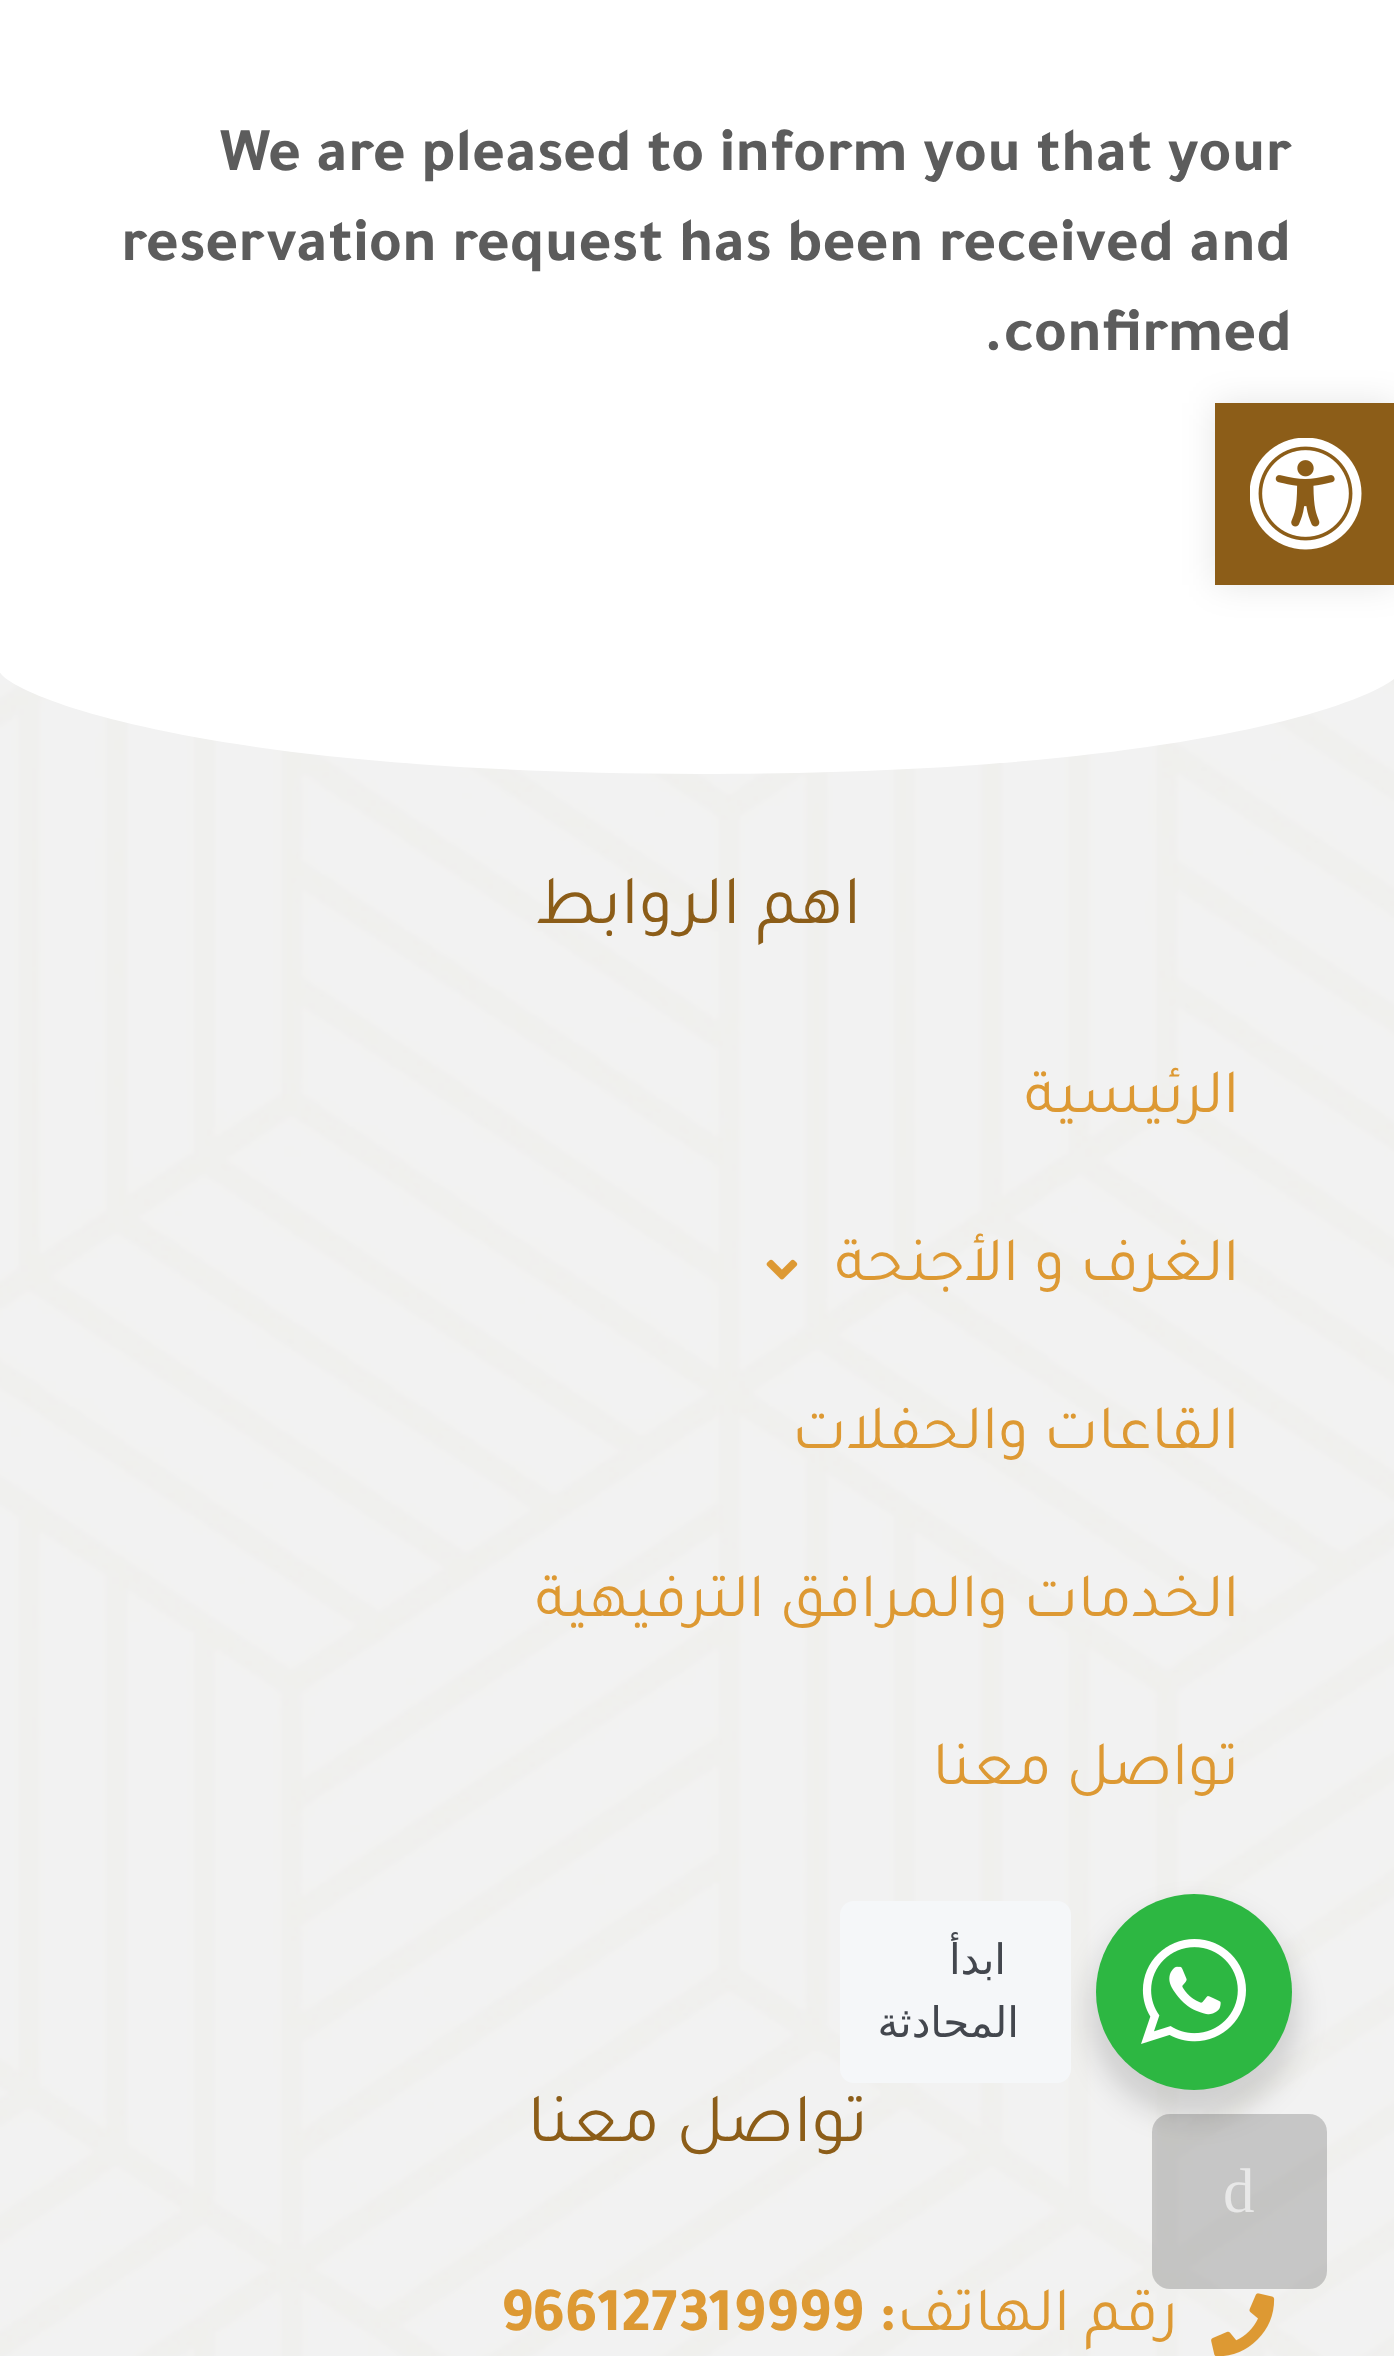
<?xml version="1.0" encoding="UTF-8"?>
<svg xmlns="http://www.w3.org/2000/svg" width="1394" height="2356">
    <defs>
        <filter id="blur1" x="-50%" y="-200%" width="200%" height="500%"><feGaussianBlur stdDeviation="17.5"/></filter>
        <filter id="blur2" x="-50%" y="-200%" width="200%" height="500%"><feGaussianBlur stdDeviation="14"/></filter>
    </defs>
    <rect width="100%" height="100%" fill="#FFFFFF"/>
    <text x="220" y="170" font-family="Tajawal" font-size="63" font-weight="700" fill="#5C5C5C">We are pleased to inform you that your</text>
    <text x="121" y="260" font-family="Tajawal" font-size="63" font-weight="700" fill="#5C5C5C">reservation request has been received and</text>
    <text x="983" y="350" font-family="Tajawal" font-size="63" font-weight="700" fill="#5C5C5C">.confirmed</text>
    <rect x="1215" y="403" width="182" height="182" fill="#000000" fill-opacity="0.1" filter="url(#blur1)"/>
    <rect x="1215" y="403" width="179" height="182" fill="#8C5D18"/>
    <image x="1250" y="438" width="112" height="112" href="img_01.png"/>
    <rect x="0" y="672" width="1394" height="1684" fill="#F2F2F2"/>
    <image x="0" y="672" width="1394" height="1684" href="img_02.png"/>
    <path d="M 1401 670 V 665 H -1 V 670 C 1 690 177 773 700 774 C 1223 774 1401 690 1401 670 Z" fill="#FFFFFF"/>
    <text x="861" y="923" font-family="Tajawal" font-size="70" direction="rtl" fill="#8C5D18">اهم الروابط</text>
    <text x="1239" y="1112" font-family="Tajawal" font-size="63" direction="rtl" fill="#DD9933">الرئيسية</text>
    <text x="1239" y="1280" font-family="Tajawal" font-size="63" direction="rtl" fill="#DD9933">الغرف و الأجنحة</text>
    <image x="766" y="1259" width="32" height="21" href="img_03.png"/>
    <text x="1239" y="1448" font-family="Tajawal" font-size="63" direction="rtl" fill="#DD9933">القاعات والحفلات</text>
    <text x="1239" y="1616" font-family="Tajawal" font-size="63" direction="rtl" fill="#DD9933">الخدمات والمرافق الترفيهية</text>
    <text x="1239" y="1784" font-family="Tajawal" font-size="63" direction="rtl" fill="#DD9933">تواصل معنا</text>
    <text x="868" y="2141" font-family="Tajawal" font-size="70" direction="rtl" fill="#8C5D18">تواصل معنا</text>
    <image x="1211" y="2293" width="64" height="63" href="img_04.png"/>
    <text x="1178" y="2330" font-family="Tajawal" font-size="63" direction="rtl" fill="#DD9933">رقم الهاتف</text>
    <text x="896" y="2330" font-family="Tajawal" font-size="63" font-weight="700" direction="rtl" fill="#DD9933">:</text>
    <text x="500" y="2330" font-family="Tajawal" font-size="63" font-weight="700" fill="#DD9933">966127319999</text>
    <rect x="1089" y="1908" width="210" height="210" rx="105" fill="#000000" fill-opacity="0.14" filter="url(#blur2)"/>
    <circle cx="1194" cy="1992" r="98" fill="#2DB742"/>
    <image x="1141" y="1939" width="105" height="105" href="img_05.png"/>
    <rect x="840" y="1901" width="231" height="182" rx="14" fill="#F5F7F9"/>
    <text x="1006" y="1974" font-family="DejaVu Sans" font-size="42" letter-spacing="-1.25" direction="rtl" fill="#43474E">ابدأ</text>
    <text x="1019" y="2037" font-family="DejaVu Sans" font-size="42" letter-spacing="-1.25" direction="rtl" fill="#43474E">المحادثة</text>
    <rect x="1152" y="2114" width="175" height="175" rx="18" fill="#000000" fill-opacity="0.18"/>
    <text x="1223" y="2212" font-family="Liberation Serif" font-size="63" fill="#E8E8E8">d</text>
</svg>
